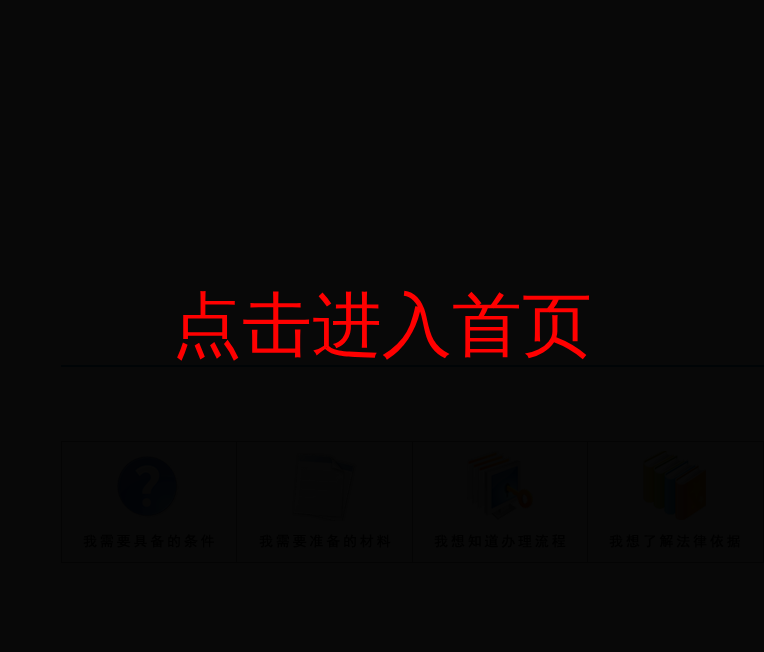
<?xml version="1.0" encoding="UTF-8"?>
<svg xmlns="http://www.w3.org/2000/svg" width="764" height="652">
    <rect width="100%" height="100%" fill="#080808"/>
    <text x="172" y="349" font-family="WenQuanYi Zen Hei" font-size="70" font-weight="500" fill="#FF0000">点击进入首页</text>
    <rect x="61" y="365" width="703" height="2" fill="#000406"/>
    <rect x="61" y="441" width="703" height="1" fill="#040404"/>
    <rect x="61" y="562" width="703" height="1" fill="#040404"/>
    <rect x="61" y="441" width="1" height="122" fill="#040404"/>
    <image x="83" y="456" width="131" height="92" href="img_01.png"/>
    <rect x="236" y="441" width="1" height="122" fill="#040404"/>
    <image x="259" y="453" width="132" height="95" href="img_02.png"/>
    <rect x="412" y="441" width="1" height="122" fill="#040404"/>
    <image x="434" y="451" width="132" height="97" href="img_03.png"/>
    <rect x="587" y="441" width="1" height="122" fill="#040404"/>
    <image x="609" y="451" width="131" height="97" href="img_04.png"/>
    <rect x="763" y="441" width="1" height="122" fill="#040404"/>
</svg>
